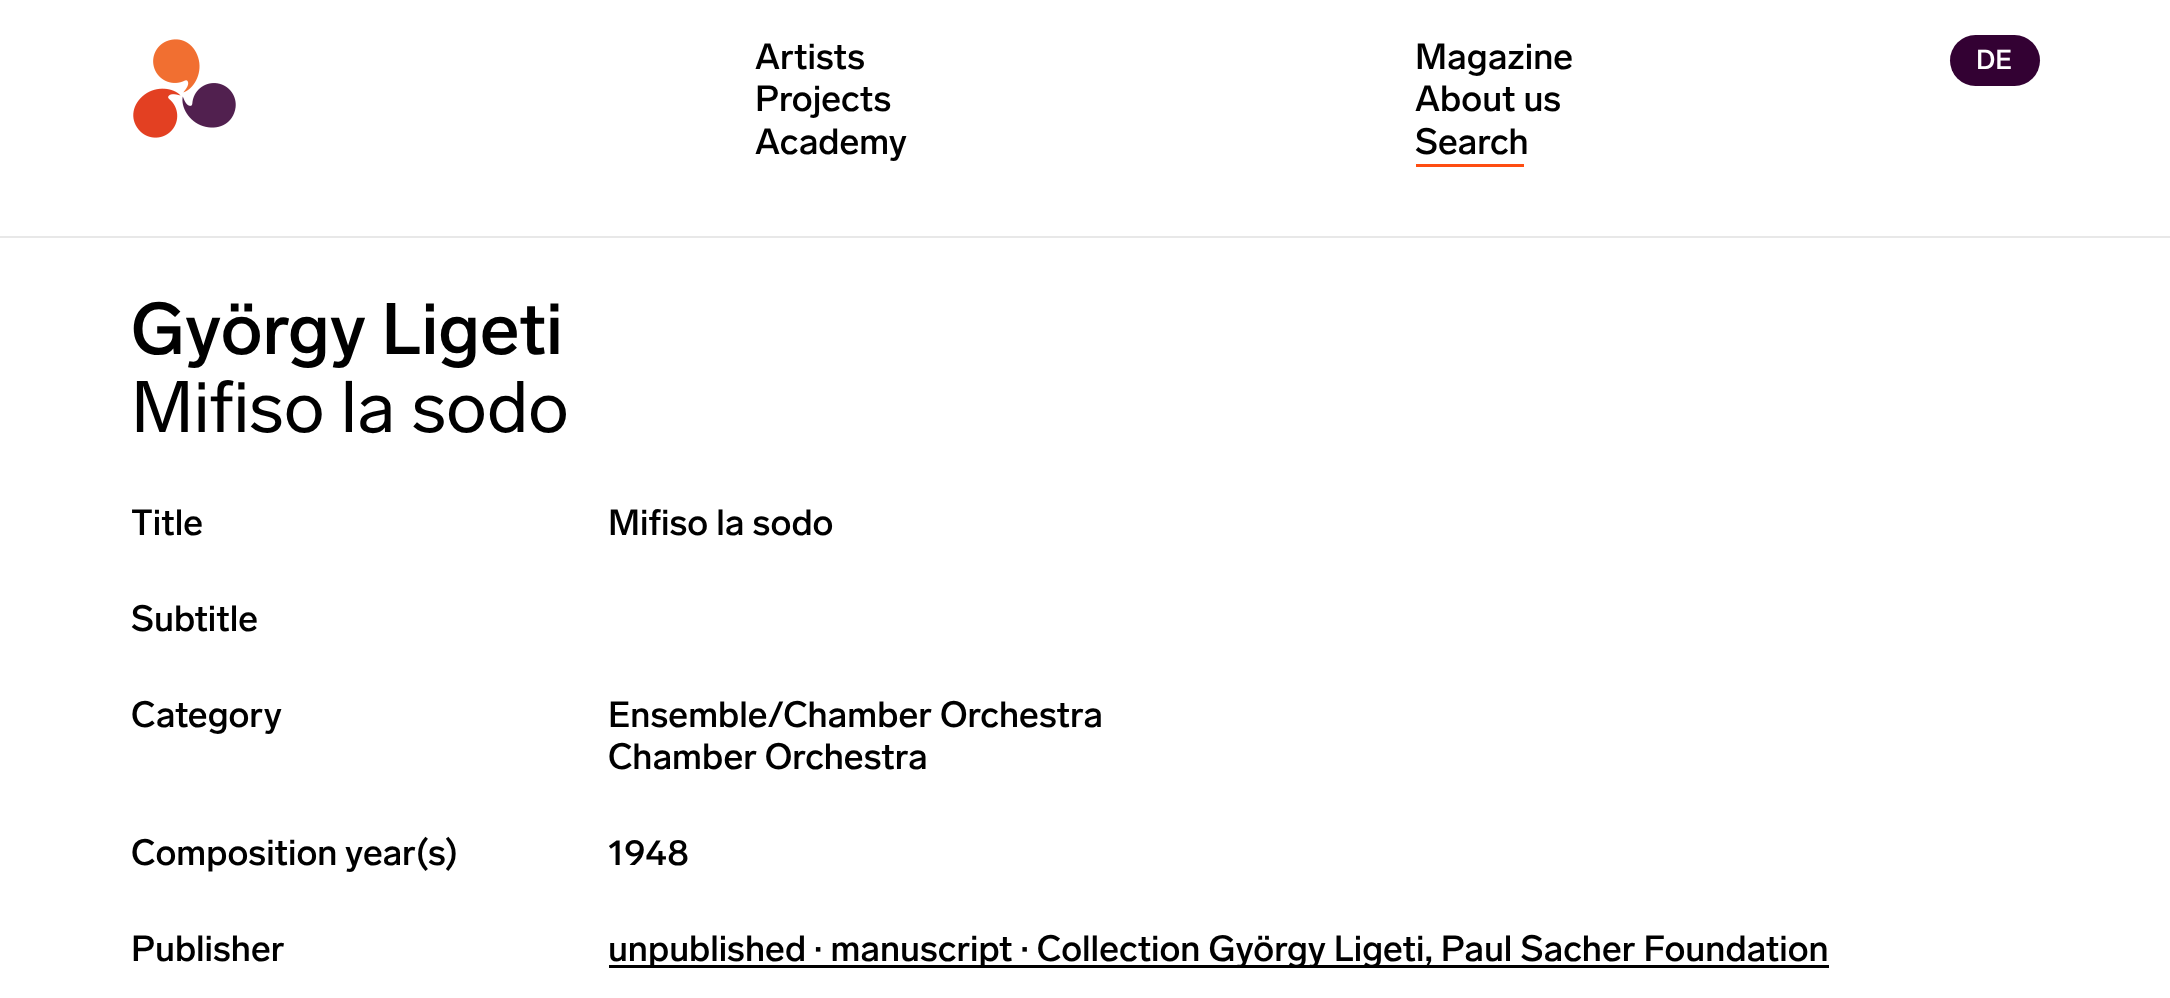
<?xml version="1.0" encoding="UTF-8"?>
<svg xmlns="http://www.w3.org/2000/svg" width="2170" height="998">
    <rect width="100%" height="100%" fill="#FFFFFF"/>
    <rect x="0" y="236" width="2170" height="2" fill="#E8E8E8"/>
    <image x="133" y="39" width="103" height="99" href="img_01.png"/>
    <text font-family="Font" font-size="36" font-weight="500" fill="#000000">
        <tspan x="755" y="69">Artists</tspan>
        <tspan x="755" y="111">Projects</tspan>
        <tspan x="755" y="154">Academy</tspan>
    </text>
    <text font-family="Font" font-size="36" font-weight="500" fill="#000000">
        <tspan x="1415" y="69">Magazine</tspan>
        <tspan x="1415" y="111">About us</tspan>
        <tspan x="1415" y="154">Search</tspan>
    </text>
    <rect x="1416" y="164" width="108" height="3" fill="#FE4D11"/>
    <rect x="1950" y="35" width="90" height="51" rx="25.5" fill="#330133"/>
    <text x="1976" y="69" font-family="Font" font-size="27" font-weight="500" fill="#FFFFFF">DE</text>
    <text x="131" y="354" font-family="Font" font-size="72" font-weight="500" fill="#000000">György Ligeti</text>
    <text x="131" y="432" font-family="Font" font-size="72" fill="#000000">Mifiso la sodo</text>
    <text x="131" y="535" font-family="Font" font-size="36" font-weight="500" fill="#000000">Title</text>
    <text x="608" y="535" font-family="Font" font-size="36" font-weight="500" fill="#000000">Mifiso la sodo</text>
    <text x="131" y="631" font-family="Font" font-size="36" font-weight="500" fill="#000000">Subtitle</text>
    <text x="131" y="727" font-family="Font" font-size="36" font-weight="500" fill="#000000">Category</text>
    <text font-family="Font" font-size="36" font-weight="500" fill="#000000">
        <tspan x="608" y="727">Ensemble/Chamber Orchestra</tspan>
        <tspan x="608" y="769">Chamber Orchestra</tspan>
    </text>
    <text x="131" y="865" font-family="Font" font-size="36" font-weight="500" fill="#000000">Composition year(s)</text>
    <text x="608" y="865" font-family="Font" font-size="36" font-weight="500" fill="#000000">1948</text>
    <text x="131" y="961" font-family="Font" font-size="36" font-weight="500" fill="#000000">Publisher</text>
    <rect x="609" y="965" width="1220" height="3" fill="#000000"/>
    <text x="608" y="961" font-family="Font" font-size="36" font-weight="500" fill="#000000">unpublished · manuscript · Collection György Ligeti, Paul Sacher Foundation</text>
</svg>
